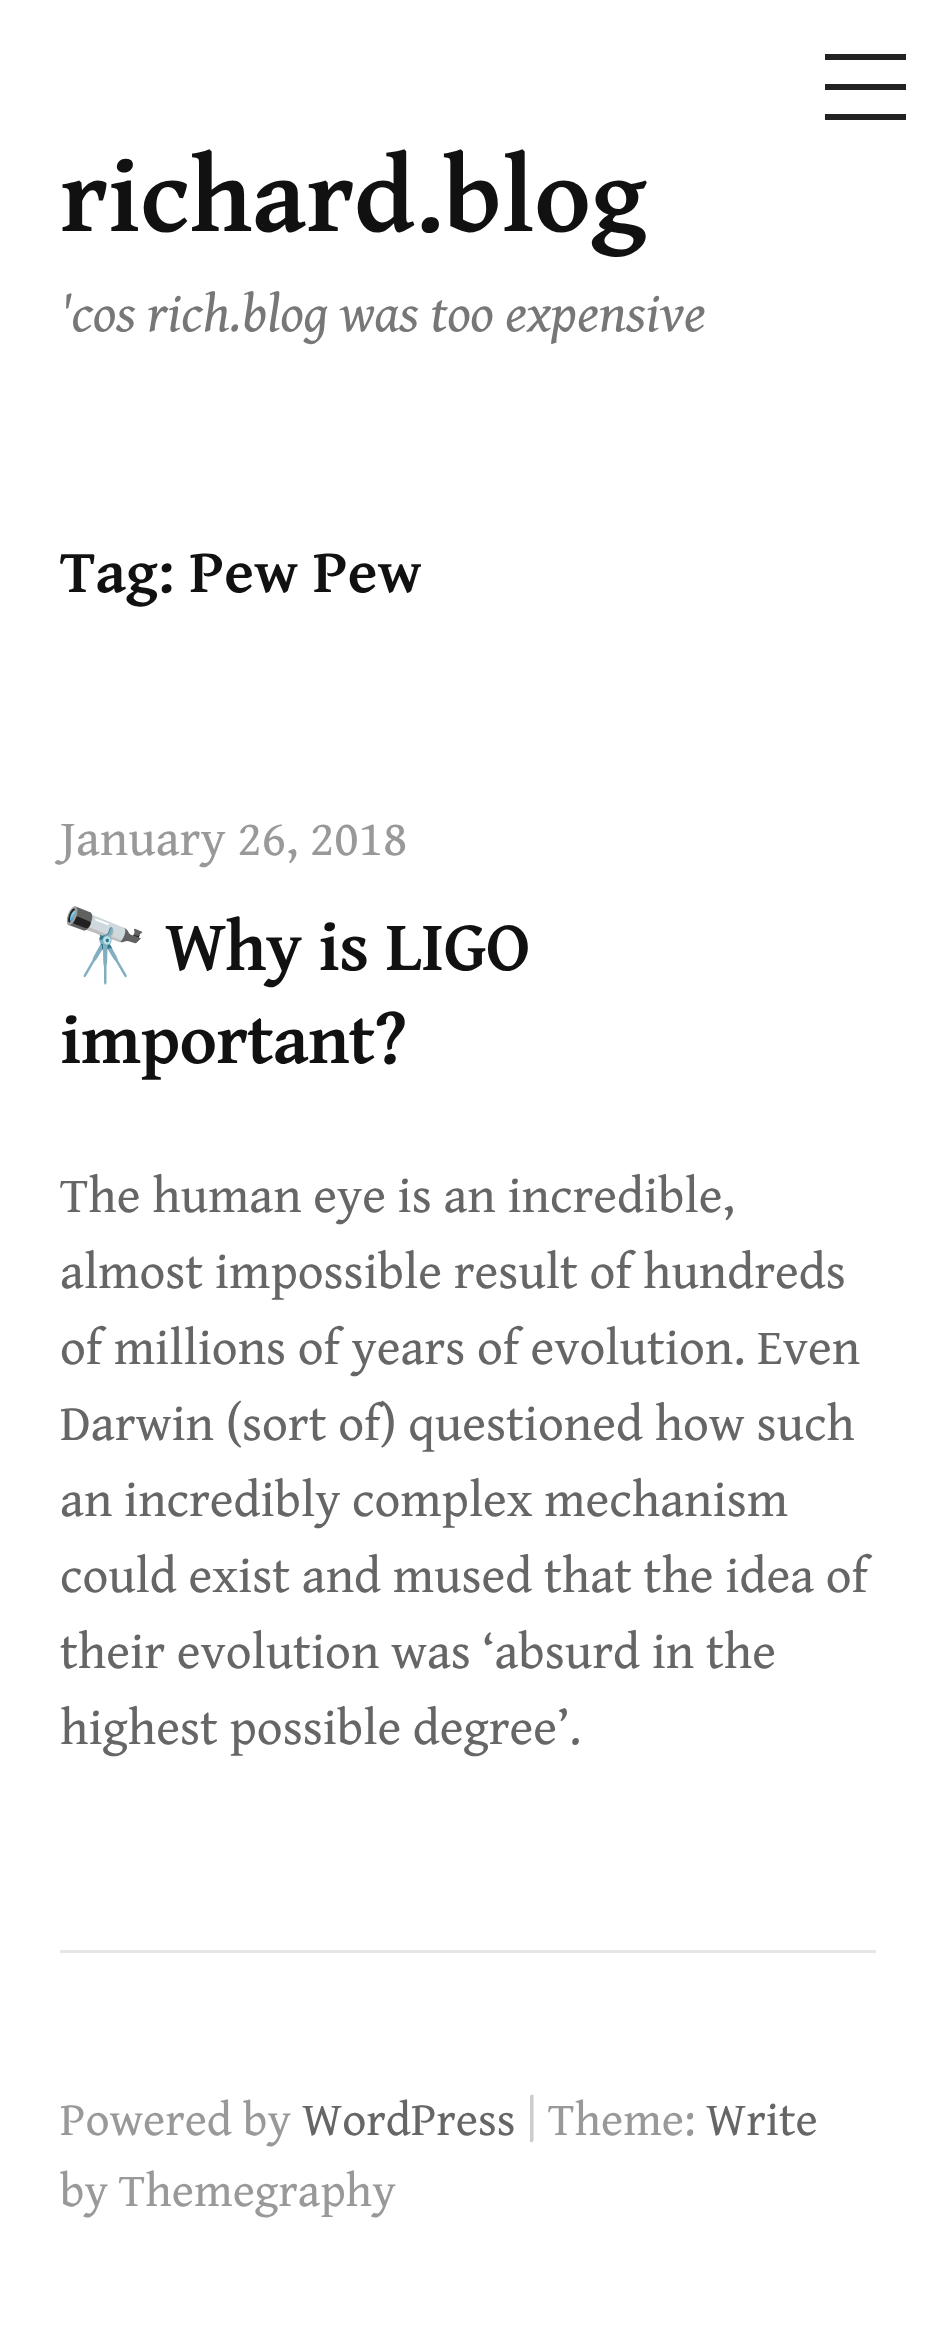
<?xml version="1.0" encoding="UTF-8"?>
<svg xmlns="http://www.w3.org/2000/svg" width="934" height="2349">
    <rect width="100%" height="100%" fill="#FFFFFF"/>
    <rect x="825" y="84" width="81" height="6" fill="#222222"/>
    <rect x="825" y="54" width="81" height="6" fill="#222222"/>
    <rect x="825" y="114" width="81" height="6" fill="#222222"/>
    <text x="60" y="231" font-family="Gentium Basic" font-size="108" font-weight="700" fill="#111111">richard.blog</text>
    <text x="60" y="331" font-family="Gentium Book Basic" font-size="54" font-style="italic" fill="#777777">'cos rich.blog was too expensive</text>
    <text x="60" y="592" font-family="Gentium Basic" font-size="61.25" font-weight="700" fill="#111111">Tag: Pew Pew</text>
    <text x="60" y="855" font-family="Gentium Book Basic" font-size="50.6" fill="#999999">January 26, 2018</text>
    <text x="60" y="970" font-family="Noto Color Emoji" font-size="71.5" font-weight="700" letter-spacing="-0.75" fill="#111111">🔭</text>
    <text x="165" y="970" font-family="Gentium Basic" font-size="71.5" font-weight="700" letter-spacing="-0.75" fill="#111111">Why is LIGO</text>
    <text x="60" y="1063" font-family="Gentium Basic" font-size="71.5" font-weight="700" letter-spacing="-0.75" fill="#111111">important?</text>
    <text font-family="Gentium Book Basic" font-size="50.6" fill="#666666">
        <tspan x="60" y="1212">The human eye is an incredible,</tspan>
        <tspan x="60" y="1288">almost impossible result of hundreds</tspan>
        <tspan x="60" y="1364">of millions of years of evolution. Even</tspan>
        <tspan x="60" y="1440">Darwin (sort of) questioned how such</tspan>
        <tspan x="60" y="1516">an incredibly complex mechanism</tspan>
        <tspan x="60" y="1592">could exist and mused that the idea of</tspan>
        <tspan x="60" y="1668">their evolution was ‘absurd in the</tspan>
        <tspan x="60" y="1744">highest possible degree’.</tspan>
    </text>
    <rect x="60" y="1950" width="816" height="3" fill="#E6E6E6"/>
    <text x="60" y="2135" font-family="Gentium Book Basic" font-size="47.25" fill="#999999">Powered by</text>
    <text x="302" y="2135" font-family="Gentium Book Basic" font-size="47.25" fill="#666666">WordPress</text>
    <text x="526" y="2133" font-family="Gentium Book Basic" font-size="47.25" fill="#CCCCCC">|</text>
    <text x="548" y="2135" font-family="Gentium Book Basic" font-size="47.25" fill="#999999">Theme:</text>
    <text x="706" y="2135" font-family="Gentium Book Basic" font-size="47.25" fill="#666666">Write</text>
    <text x="60" y="2206" font-family="Gentium Book Basic" font-size="47.25" fill="#999999">by Themegraphy</text>
</svg>
